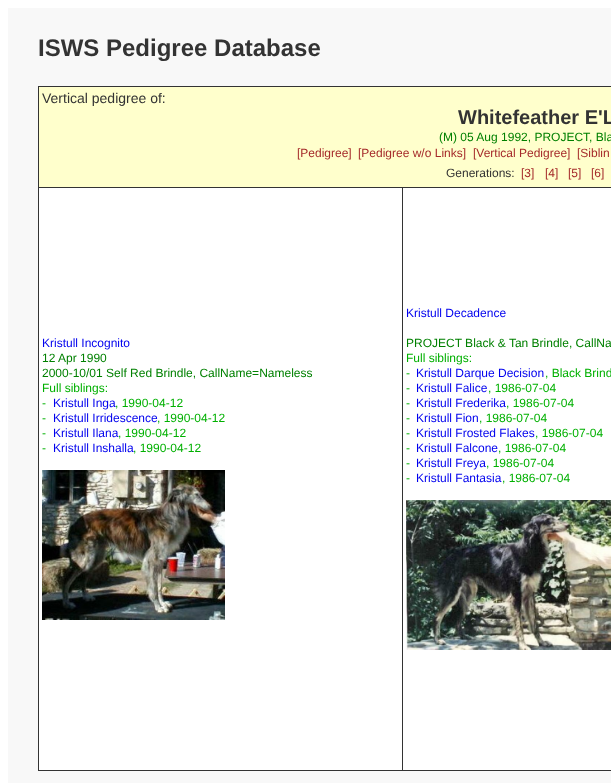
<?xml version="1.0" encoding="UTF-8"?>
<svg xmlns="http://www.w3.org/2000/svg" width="611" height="783">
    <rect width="100%" height="100%" fill="#FFFFFF"/>
    <rect x="8" y="8" width="603" height="775" fill="#F8F8F8"/>
    <text x="38" y="56" font-family="Liberation Sans" font-size="24" font-weight="700" fill="#333333">ISWS Pedigree Database</text>
    <rect x="39" y="188" width="572" height="582" fill="#FFFFFF"/>
    <rect x="38" y="86" width="573" height="1" fill="#333333"/>
    <rect x="38" y="770" width="573" height="1" fill="#333333"/>
    <rect x="38" y="86" width="1" height="685" fill="#333333"/>
    <rect x="39" y="87" width="572" height="100" fill="#FFFFCC"/>
    <text x="42" y="103" font-family="Liberation Sans" font-size="14" fill="#333333">Vertical pedigree of:</text>
    <text x="458" y="124" font-family="Liberation Sans" font-size="20" font-weight="700" fill="#333333">Whitefeather E'L</text>
    <text x="439" y="141" font-family="Liberation Sans" font-size="12" fill="#008000">(M) 05 Aug 1992, PROJECT, Bla</text>
    <text x="297" y="157" font-family="Liberation Sans" font-size="12" fill="#A52A2A">[Pedigree]</text>
    <text x="358" y="157" font-family="Liberation Sans" font-size="12" fill="#A52A2A">[Pedigree w/o Links]</text>
    <text x="473" y="157" font-family="Liberation Sans" font-size="12" fill="#A52A2A">[Vertical Pedigree]</text>
    <text x="577" y="157" font-family="Liberation Sans" font-size="12" fill="#A52A2A">[Siblin</text>
    <text x="446" y="177" font-family="Liberation Sans" font-size="12" fill="#333333">Generations:</text>
    <text x="521" y="177" font-family="Liberation Sans" font-size="12" fill="#A52A2A">[3]</text>
    <text x="545" y="177" font-family="Liberation Sans" font-size="12" fill="#A52A2A">[4]</text>
    <text x="568" y="177" font-family="Liberation Sans" font-size="12" fill="#A52A2A">[5]</text>
    <text x="591" y="177" font-family="Liberation Sans" font-size="12" fill="#A52A2A">[6]</text>
    <rect x="402" y="187" width="209" height="1" fill="#333333"/>
    <rect x="402" y="187" width="1" height="584" fill="#333333"/>
    <rect x="38" y="187" width="365" height="1" fill="#333333"/>
    <text x="42" y="347" font-family="Liberation Sans" font-size="12" fill="#0000EE">Kristull Incognito</text>
    <text font-family="Liberation Sans" font-size="12" fill="#008000">
        <tspan x="42" y="362">12 Apr 1990</tspan>
        <tspan x="42" y="377">2000-10/01 Self Red Brindle, CallName=Nameless</tspan>
    </text>
    <text font-family="Liberation Sans" font-size="12" fill="#00B000">
        <tspan x="42" y="392">Full siblings:</tspan>
        <tspan x="42" y="407">-</tspan>
    </text>
    <text x="53" y="407" font-family="Liberation Sans" font-size="12" fill="#0000EE">Kristull Inga</text>
    <text x="115" y="407" font-family="Liberation Sans" font-size="12" fill="#00B000">, 1990-04-12</text>
    <text x="42" y="422" font-family="Liberation Sans" font-size="12" fill="#00B000">-</text>
    <text x="53" y="422" font-family="Liberation Sans" font-size="12" fill="#0000EE">Kristull Irridescence</text>
    <text x="157" y="422" font-family="Liberation Sans" font-size="12" fill="#00B000">, 1990-04-12</text>
    <text x="42" y="437" font-family="Liberation Sans" font-size="12" fill="#00B000">-</text>
    <text x="53" y="437" font-family="Liberation Sans" font-size="12" fill="#0000EE">Kristull Ilana</text>
    <text x="118" y="437" font-family="Liberation Sans" font-size="12" fill="#00B000">, 1990-04-12</text>
    <text x="42" y="452" font-family="Liberation Sans" font-size="12" fill="#00B000">-</text>
    <text x="53" y="452" font-family="Liberation Sans" font-size="12" fill="#0000EE">Kristull Inshalla</text>
    <text x="133" y="452" font-family="Liberation Sans" font-size="12" fill="#00B000">, 1990-04-12</text>
    <image x="42" y="470" width="183" height="150" href="img_01.png"/>
    <text x="406" y="317" font-family="Liberation Sans" font-size="12" fill="#0000EE">Kristull Decadence</text>
    <text x="406" y="347" font-family="Liberation Sans" font-size="12" fill="#008000">PROJECT Black &amp; Tan Brindle, CallNa</text>
    <text font-family="Liberation Sans" font-size="12" fill="#00B000">
        <tspan x="406" y="362">Full siblings:</tspan>
        <tspan x="406" y="377">-</tspan>
    </text>
    <text x="416" y="377" font-family="Liberation Sans" font-size="12" fill="#0000EE">Kristull Darque Decision</text>
    <text x="545" y="377" font-family="Liberation Sans" font-size="12" fill="#00B000">, Black Brind</text>
    <text x="406" y="392" font-family="Liberation Sans" font-size="12" fill="#00B000">-</text>
    <text x="416" y="392" font-family="Liberation Sans" font-size="12" fill="#0000EE">Kristull Falice</text>
    <text x="488" y="392" font-family="Liberation Sans" font-size="12" fill="#00B000">, 1986-07-04</text>
    <text x="406" y="407" font-family="Liberation Sans" font-size="12" fill="#00B000">-</text>
    <text x="416" y="407" font-family="Liberation Sans" font-size="12" fill="#0000EE">Kristull Frederika</text>
    <text x="506" y="407" font-family="Liberation Sans" font-size="12" fill="#00B000">, 1986-07-04</text>
    <text x="406" y="422" font-family="Liberation Sans" font-size="12" fill="#00B000">-</text>
    <text x="416" y="422" font-family="Liberation Sans" font-size="12" fill="#0000EE">Kristull Fion</text>
    <text x="479" y="422" font-family="Liberation Sans" font-size="12" fill="#00B000">, 1986-07-04</text>
    <text x="406" y="437" font-family="Liberation Sans" font-size="12" fill="#00B000">-</text>
    <text x="416" y="437" font-family="Liberation Sans" font-size="12" fill="#0000EE">Kristull Frosted Flakes</text>
    <text x="535" y="437" font-family="Liberation Sans" font-size="12" fill="#00B000">, 1986-07-04</text>
    <text x="406" y="452" font-family="Liberation Sans" font-size="12" fill="#00B000">-</text>
    <text x="416" y="452" font-family="Liberation Sans" font-size="12" fill="#0000EE">Kristull Falcone</text>
    <text x="498" y="452" font-family="Liberation Sans" font-size="12" fill="#00B000">, 1986-07-04</text>
    <text x="406" y="467" font-family="Liberation Sans" font-size="12" fill="#00B000">-</text>
    <text x="416" y="467" font-family="Liberation Sans" font-size="12" fill="#0000EE">Kristull Freya</text>
    <text x="486" y="467" font-family="Liberation Sans" font-size="12" fill="#00B000">, 1986-07-04</text>
    <text x="406" y="482" font-family="Liberation Sans" font-size="12" fill="#00B000">-</text>
    <text x="416" y="482" font-family="Liberation Sans" font-size="12" fill="#0000EE">Kristull Fantasia</text>
    <text x="502" y="482" font-family="Liberation Sans" font-size="12" fill="#00B000">, 1986-07-04</text>
    <image x="406" y="500" width="205" height="150" href="img_02.png"/>
</svg>
